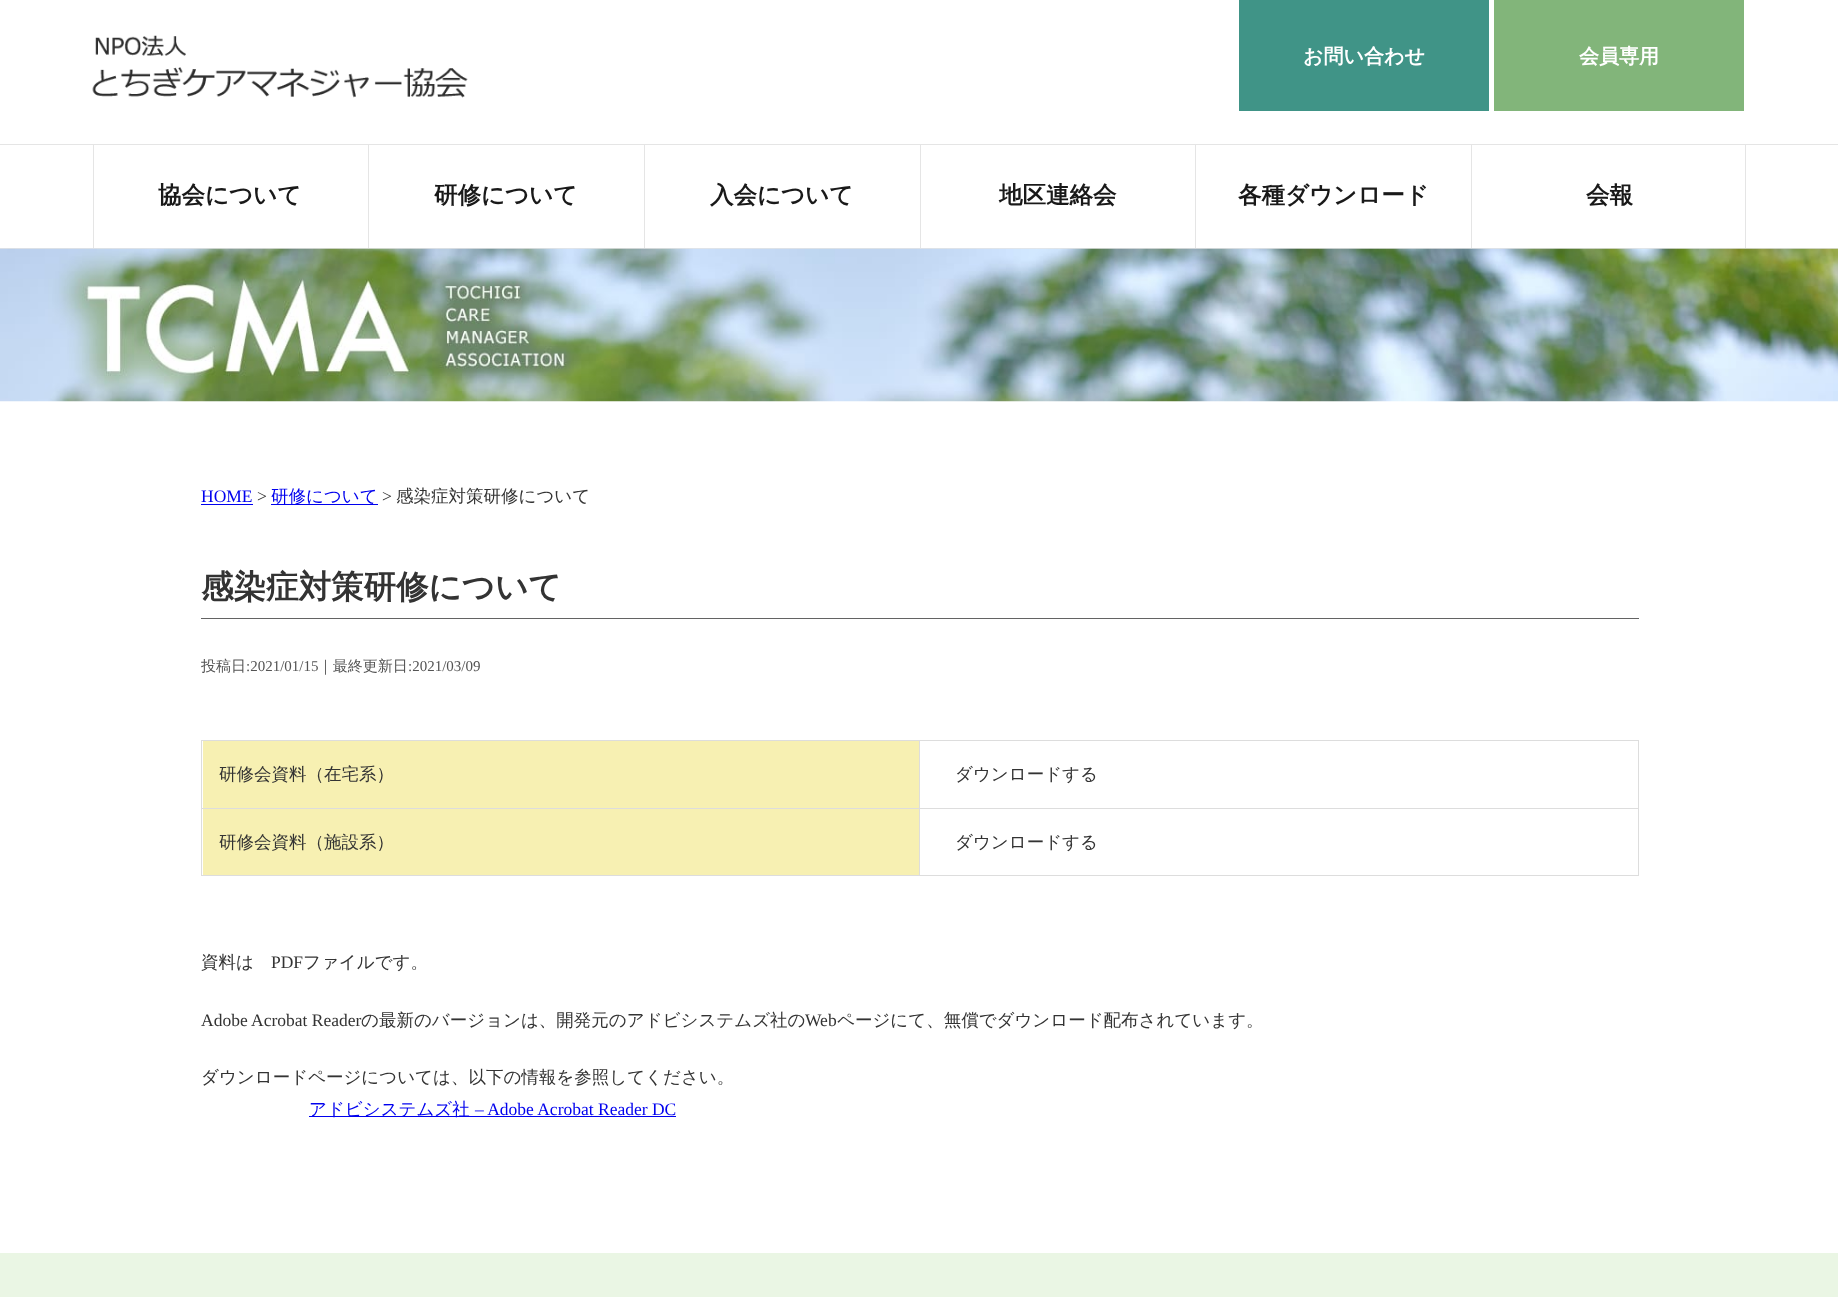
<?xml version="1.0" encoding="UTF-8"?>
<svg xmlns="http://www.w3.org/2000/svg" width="1838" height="1297">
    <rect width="100%" height="100%" fill="#FFFFFF"/>
    <image x="92" y="35" width="376" height="63" href="img_01.png"/>
    <rect x="1239" y="0" width="250" height="111" fill="#409487"/>
    <text x="1303" y="63" font-family="WenQuanYi Zen Hei" font-size="20" font-weight="700" fill="#FFFFFF">お問い合わせ</text>
    <rect x="1494" y="0" width="250" height="111" fill="#82B57A"/>
    <text x="1579" y="63" font-family="WenQuanYi Zen Hei" font-size="20" font-weight="700" fill="#FFFFFF">会員専用</text>
    <rect x="0" y="144" width="1838" height="1" fill="#E5E5E5"/>
    <rect x="0" y="248" width="1838" height="1" fill="#E5E5E5"/>
    <rect x="93" y="145" width="1" height="103" fill="#E5E5E5"/>
    <text x="158" y="203" font-family="WenQuanYi Zen Hei" font-size="23.5" font-weight="700" fill="#191919">協会について</text>
    <rect x="368" y="145" width="1" height="103" fill="#E5E5E5"/>
    <text x="434" y="203" font-family="WenQuanYi Zen Hei" font-size="23.5" font-weight="700" fill="#191919">研修について</text>
    <rect x="644" y="145" width="1" height="103" fill="#E5E5E5"/>
    <text x="710" y="203" font-family="WenQuanYi Zen Hei" font-size="23.5" font-weight="700" fill="#191919">入会について</text>
    <rect x="920" y="145" width="1" height="103" fill="#E5E5E5"/>
    <text x="999" y="203" font-family="WenQuanYi Zen Hei" font-size="23.5" font-weight="700" fill="#191919">地区連絡会</text>
    <rect x="1195" y="145" width="1" height="103" fill="#E5E5E5"/>
    <text x="1238" y="203" font-family="WenQuanYi Zen Hei" font-size="23.5" font-weight="700" fill="#191919">各種ダウンロード</text>
    <rect x="1745" y="145" width="1" height="103" fill="#E5E5E5"/>
    <rect x="1471" y="145" width="1" height="103" fill="#E5E5E5"/>
    <text x="1586" y="203" font-family="WenQuanYi Zen Hei" font-size="23.5" font-weight="700" fill="#191919">会報</text>
    <image x="0" y="248" width="1838" height="154" href="img_02.png"/>
    <text x="201" y="502" font-family="Liberation Serif" font-size="17.5" fill="#0000EE">HOME</text>
    <rect x="201" y="504" width="52" height="1" fill="#0000EE"/>
    <text x="257" y="502" font-family="Liberation Serif" font-size="17.5" fill="#333333">&gt;</text>
    <rect x="271" y="504" width="107" height="1" fill="#0000EE"/>
    <text x="271" y="502" font-family="WenQuanYi Zen Hei" font-size="17.5" font-weight="500" fill="#0000EE">研修について</text>
    <text x="382" y="502" font-family="Liberation Serif" font-size="17.5" fill="#333333">&gt;</text>
    <text x="396" y="502" font-family="WenQuanYi Zen Hei" font-size="17.5" font-weight="500" fill="#333333">感染症対策研修について</text>
    <rect x="201" y="618" width="1438" height="1" fill="#636363"/>
    <text x="201" y="598" font-family="WenQuanYi Zen Hei" font-size="32.5" font-weight="700" fill="#333333">感染症対策研修について</text>
    <text x="201" y="671" font-family="WenQuanYi Zen Hei" font-size="15" font-weight="500" fill="#545454">投稿日</text>
    <text x="246" y="671" font-family="Liberation Serif" font-size="15" fill="#545454">:2021/01/15</text>
    <text x="318" y="671" font-family="WenQuanYi Zen Hei" font-size="15" font-weight="500" fill="#545454">｜最終更新日</text>
    <text x="408" y="671" font-family="Liberation Serif" font-size="15" fill="#545454">:2021/03/09</text>
    <rect x="201" y="740" width="1438" height="1" fill="#DDDDDD"/>
    <rect x="1638" y="740" width="1" height="136" fill="#DDDDDD"/>
    <rect x="201" y="875" width="1438" height="1" fill="#DDDDDD"/>
    <rect x="201" y="740" width="1" height="136" fill="#DDDDDD"/>
    <rect x="203" y="741" width="716" height="67" fill="#F7F0B2"/>
    <rect x="919" y="808" width="1" height="68" fill="#DDDDDD"/>
    <rect x="919" y="808" width="720" height="1" fill="#DDDDDD"/>
    <rect x="919" y="740" width="1" height="69" fill="#DDDDDD"/>
    <rect x="201" y="808" width="719" height="1" fill="#DDDDDD"/>
    <text x="219" y="780" font-family="WenQuanYi Zen Hei" font-size="17.5" font-weight="500" fill="#333333">研修会資料（在宅系）</text>
    <text x="955" y="780" font-family="WenQuanYi Zen Hei" font-size="17.5" font-weight="500" fill="#333333">ダウンロードする</text>
    <rect x="203" y="809" width="716" height="66" fill="#F7F0B2"/>
    <text x="219" y="848" font-family="WenQuanYi Zen Hei" font-size="17.5" font-weight="500" fill="#333333">研修会資料（施設系）</text>
    <text x="955" y="848" font-family="WenQuanYi Zen Hei" font-size="17.5" font-weight="500" fill="#333333">ダウンロードする</text>
    <text x="201" y="968" font-family="WenQuanYi Zen Hei" font-size="17.5" font-weight="500" fill="#333333">資料は</text>
    <text x="271" y="968" font-family="Liberation Serif" font-size="17.5" fill="#333333">PDF</text>
    <text x="303" y="968" font-family="WenQuanYi Zen Hei" font-size="17.5" font-weight="500" fill="#333333">ファイルです。</text>
    <text x="201" y="1026" font-family="Liberation Serif" font-size="17.5" fill="#333333">Adobe Acrobat Reader</text>
    <text x="361" y="1026" font-family="WenQuanYi Zen Hei" font-size="17.5" font-weight="500" fill="#333333">の最新のバージョンは、開発元のアドビシステムズ社の</text>
    <text x="805" y="1026" font-family="Liberation Serif" font-size="17.5" fill="#333333">Web</text>
    <text x="837" y="1026" font-family="WenQuanYi Zen Hei" font-size="17.5" font-weight="500" fill="#333333">ページにて、無償でダウンロード配布されています。</text>
    <text x="201" y="1083" font-family="WenQuanYi Zen Hei" font-size="17.5" font-weight="500" fill="#333333">ダウンロードページについては、以下の情報を参照してください。</text>
    <rect x="309" y="1116" width="367" height="1" fill="#0000EE"/>
    <text x="309" y="1115" font-family="WenQuanYi Zen Hei" font-size="17.5" font-weight="500" fill="#0000EE">アドビシステムズ社</text>
    <text x="475" y="1115" font-family="Liberation Serif" font-size="17.5" fill="#0000EE">– Adobe Acrobat Reader DC</text>
    <rect x="0" y="1253" width="1838" height="44" fill="#EAF6E4"/>
</svg>
